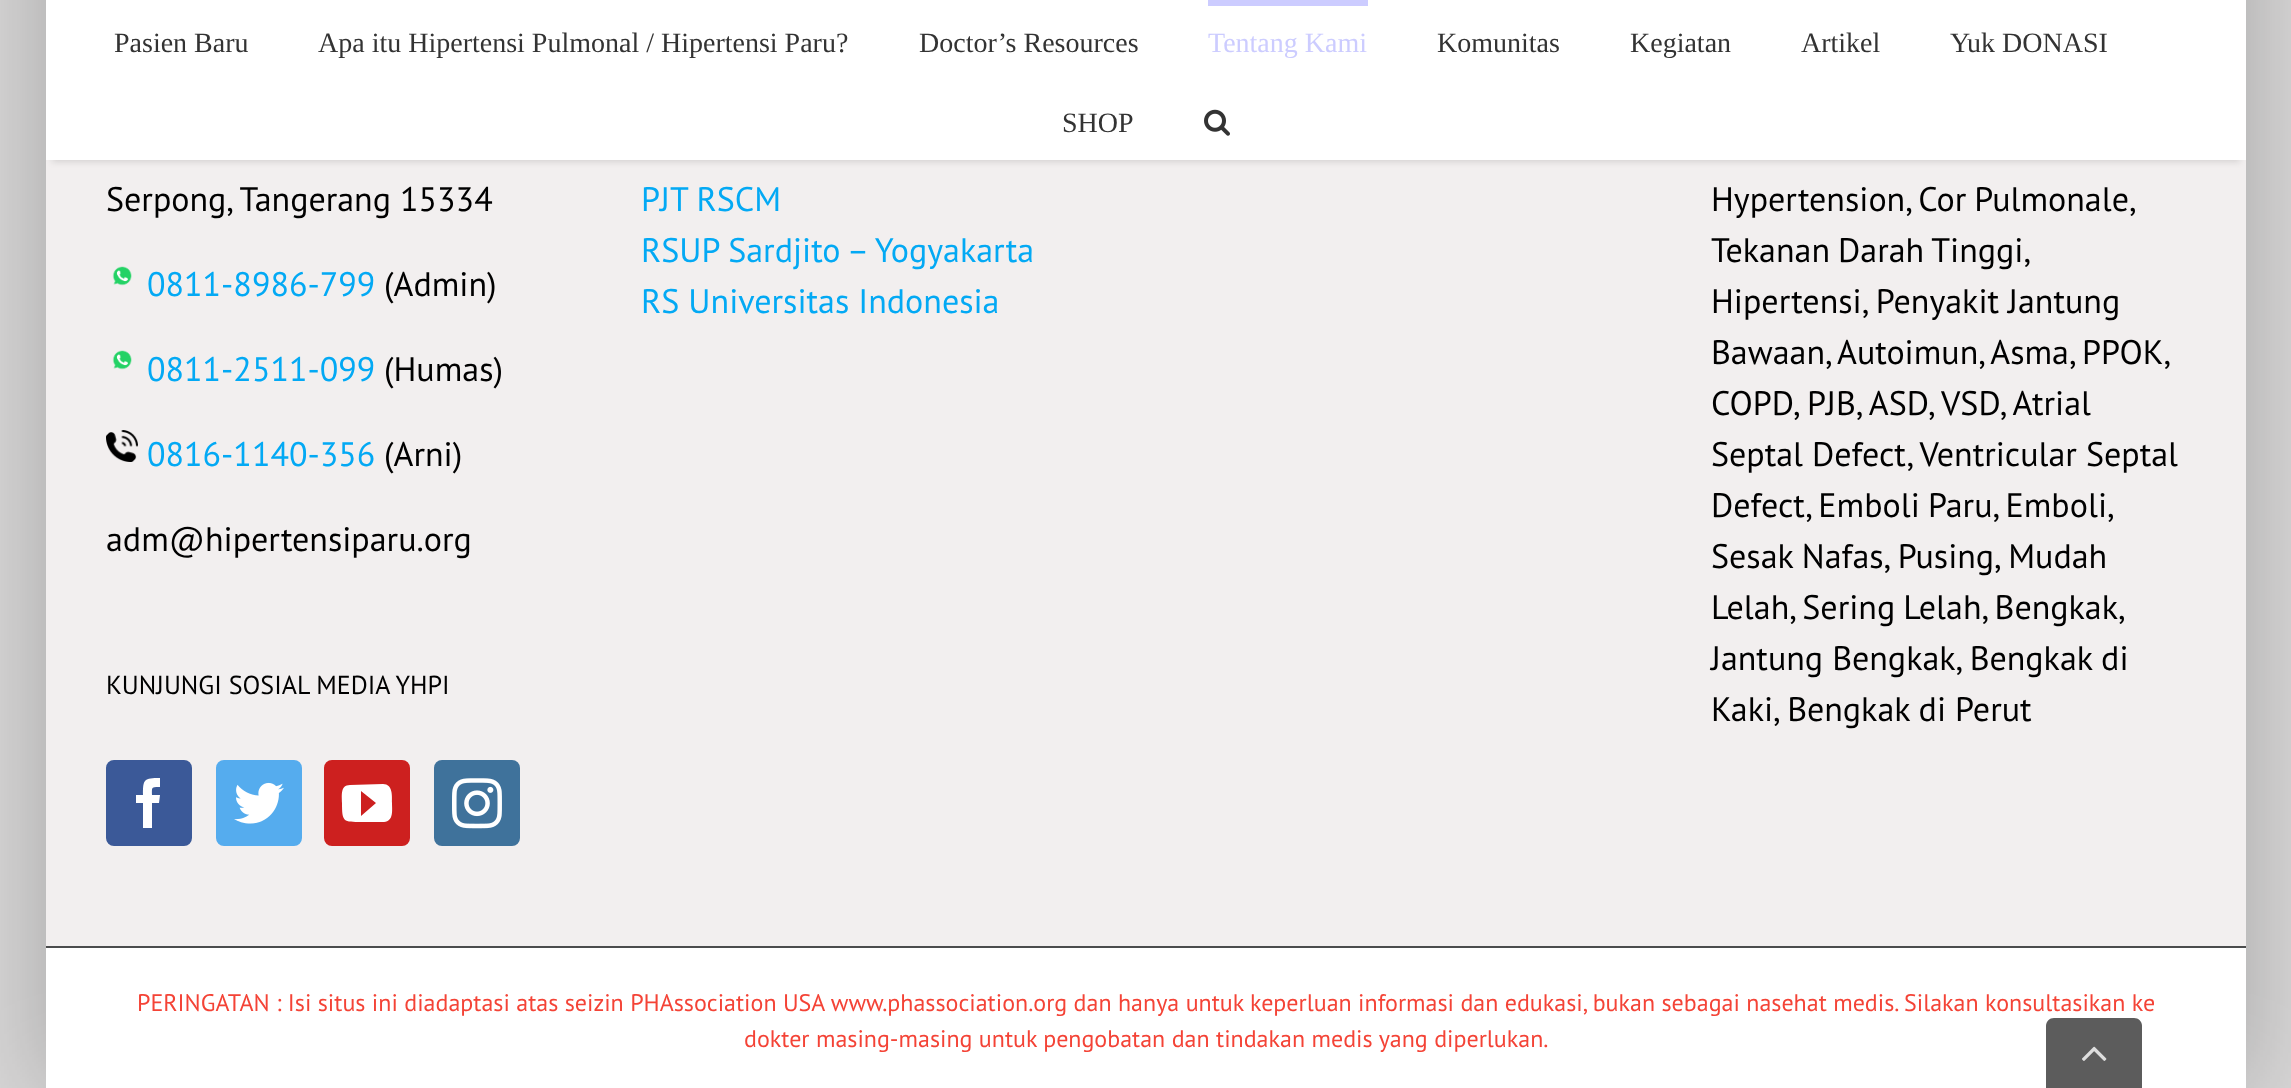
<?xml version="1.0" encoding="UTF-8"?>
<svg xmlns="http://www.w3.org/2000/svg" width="2291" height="1088">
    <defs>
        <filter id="blur1" x="-50%" y="-200%" width="200%" height="500%"><feGaussianBlur stdDeviation="50"/></filter>
        <filter id="blur2" x="-50%" y="-200%" width="200%" height="500%"><feGaussianBlur stdDeviation="3"/></filter>
    </defs>
    <rect width="100%" height="100%" fill="#D7D6D6"/>
    <rect x="44" y="-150" width="2204" height="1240" fill="#000000" fill-opacity="0.22" filter="url(#blur1)"/>
    <rect x="46" y="160" width="2200" height="786" fill="#F2EFEF"/>
    <rect x="52" y="14" width="2188" height="148" fill="#000000" fill-opacity="0.12" filter="url(#blur2)"/>
    <rect x="46" y="0" width="2200" height="160" fill="#FFFFFF"/>
    <text x="114" y="52" font-family="Liberation Serif" font-size="28" fill="#333333">Pasien Baru</text>
    <text x="318" y="52" font-family="Liberation Serif" font-size="28" fill="#333333">Apa itu Hipertensi Pulmonal / Hipertensi Paru?</text>
    <text x="919" y="52" font-family="Liberation Serif" font-size="28" fill="#333333">Doctor’s Resources</text>
    <rect x="1208" y="0" width="160" height="6" fill="#CCCCFF"/>
    <text x="1208" y="52" font-family="Liberation Serif" font-size="28" fill="#CCCCFF">Tentang Kami</text>
    <text x="1437" y="52" font-family="Liberation Serif" font-size="28" fill="#333333">Komunitas</text>
    <text x="1630" y="52" font-family="Liberation Serif" font-size="28" fill="#333333">Kegiatan</text>
    <text x="1801" y="52" font-family="Liberation Serif" font-size="28" fill="#333333">Artikel</text>
    <text x="1950" y="52" font-family="Liberation Serif" font-size="28" fill="#333333">Yuk DONASI</text>
    <text x="1062" y="132" font-family="Liberation Serif" font-size="28" fill="#333333">SHOP</text>
    <image x="1204" y="109" width="26" height="27" href="img_01.png"/>
    <text x="106" y="211" font-family="PT Sans" font-size="34" fill="#000000">Serpong, Tangerang 15334</text>
    <image x="112" y="266" width="20" height="20" href="img_02.png"/>
    <text x="147" y="296" font-family="PT Sans" font-size="34" fill="#03A9F4">0811-8986-799</text>
    <text x="384" y="296" font-family="PT Sans" font-size="34" fill="#000000">(Admin)</text>
    <image x="112" y="350" width="20" height="20" href="img_02.png"/>
    <text x="147" y="381" font-family="PT Sans" font-size="34" fill="#03A9F4">0811-2511-099</text>
    <text x="384" y="381" font-family="PT Sans" font-size="34" fill="#000000">(Humas)</text>
    <image x="106" y="430" width="32" height="32" href="img_03.png"/>
    <text x="147" y="466" font-family="PT Sans" font-size="34" fill="#03A9F4">0816-1140-356</text>
    <text x="384" y="466" font-family="PT Sans" font-size="34" fill="#000000">(Arni)</text>
    <text x="106" y="551" font-family="PT Sans" font-size="34" fill="#000000">adm@hipertensiparu.org</text>
    <text x="106" y="694" font-family="PT Sans" font-size="26" fill="#000000">KUNJUNGI SOSIAL MEDIA YHPI</text>
    <rect x="107" y="761" width="84" height="84" rx="7" fill="#3B5998" stroke="#3B5998" stroke-width="2"/>
    <path d="M 152 828 H 143 V 803 H 136 V 795 H 143 C 143 779 144 778 160 778 V 787 C 151 787 152 787 152 795 H 160 L 159 803 H 152 Z" fill="#FFFFFF"/>
    <rect x="217" y="761" width="84" height="84" rx="7" fill="#55ACEE" stroke="#55ACEE" stroke-width="2"/>
    <image x="234" y="782" width="50" height="42" href="img_04.png"/>
    <rect x="325" y="761" width="84" height="84" rx="7" fill="#CD201F" stroke="#CD201F" stroke-width="2"/>
    <path d="M 383 784 L 350 785 C 340 785 342 796 342 803 C 342 822 343 822 362 822 H 384 C 394 821 392 810 392 803 C 392 796 393 784 383 784 Z M 361 816 V 791 L 376 803 Z" fill="#FFFFFF"/>
    <rect x="435" y="761" width="84" height="84" rx="7" fill="#3F729B" stroke="#3F729B" stroke-width="2"/>
    <image x="452" y="778" width="50" height="51" href="img_05.png"/>
    <text font-family="PT Sans" font-size="34" fill="#03A9F4">
        <tspan x="641" y="211">PJT RSCM</tspan>
        <tspan x="641" y="262">RSUP Sardjito – Yogyakarta</tspan>
        <tspan x="641" y="313">RS Universitas Indonesia</tspan>
    </text>
    <text font-family="PT Sans" font-size="34" fill="#000000">
        <tspan x="1711" y="211" word-spacing="-1">Hypertension, Cor Pulmonale,</tspan>
        <tspan x="1711" y="262" word-spacing="-1">Tekanan Darah Tinggi,</tspan>
        <tspan x="1711" y="313">Hipertensi, Penyakit Jantung</tspan>
        <tspan x="1711" y="364" word-spacing="-1">Bawaan, Autoimun, Asma, PPOK,</tspan>
        <tspan x="1711" y="415">COPD, PJB, ASD, VSD, Atrial</tspan>
        <tspan x="1711" y="466">Septal Defect, Ventricular Septal</tspan>
        <tspan x="1711" y="517" word-spacing="-1">Defect, Emboli Paru, Emboli,</tspan>
        <tspan x="1711" y="568">Sesak Nafas, Pusing, Mudah</tspan>
        <tspan x="1711" y="619" word-spacing="-1">Lelah, Sering Lelah, Bengkak,</tspan>
        <tspan x="1711" y="670">Jantung Bengkak, Bengkak di</tspan>
        <tspan x="1711" y="721">Kaki, Bengkak di Perut</tspan>
    </text>
    <rect x="46" y="948" width="2200" height="140" fill="#FFFFFF"/>
    <rect x="46" y="946" width="2200" height="2" fill="#4B4C4D"/>
    <text x="137" y="1011" font-family="PT Sans" font-size="24" fill="#F44336">PERINGATAN : Isi situs ini diadaptasi atas seizin PHAssociation USA www.phassociation.org dan hanya untuk keperluan informasi dan edukasi, bukan sebagai nasehat medis. Silakan konsultasikan ke</text>
    <text x="744" y="1047" font-family="PT Sans" font-size="24" fill="#F44336">dokter masing-masing untuk pengobatan dan tindakan medis yang diperlukan.</text>
    <path d="M 2054 1018 H 2134 C 2138.5 1018 2142 1021.5 2142 1026 V 1088 H 2046 V 1026 C 2046 1021.5 2049.5 1018 2054 1018 Z" fill="#5C5C5C"/>
    <image x="2082" y="1046" width="25" height="15" href="img_06.png"/>
</svg>
